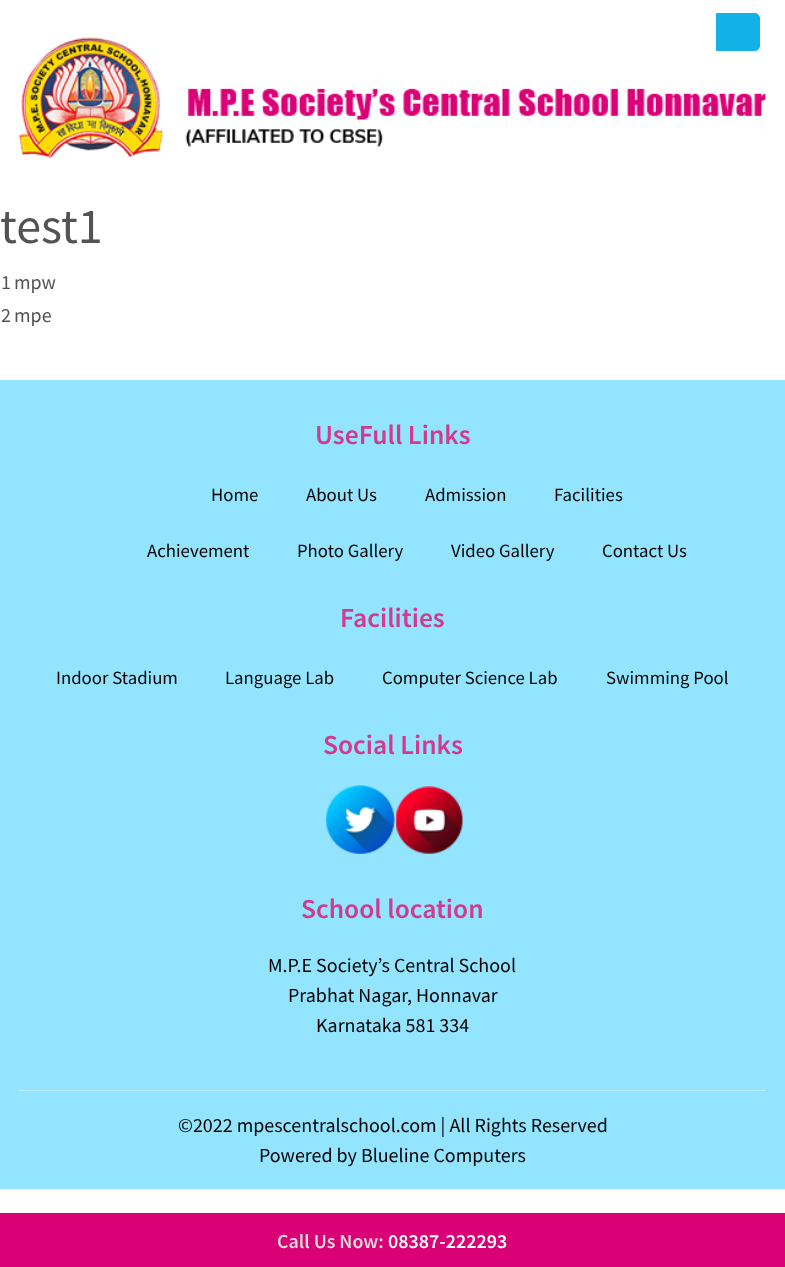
<?xml version="1.0" encoding="UTF-8"?>
<svg xmlns="http://www.w3.org/2000/svg" width="785" height="1267">
    <rect width="100%" height="100%" fill="#FFFFFF"/>
    <text x="0" y="243" font-family="Source Sans Pro" font-size="50" fill="#535353">test1</text>
    <text x="1" y="289" font-family="Source Sans Pro" font-size="20" fill="#535353">1</text>
    <text x="14" y="289" font-family="Source Sans Pro" font-size="20" fill="#535353">mpw</text>
    <text x="1" y="322" font-family="Source Sans Pro" font-size="20" fill="#535353">2</text>
    <text x="14" y="322" font-family="Source Sans Pro" font-size="20" fill="#535353">mpe</text>
    <rect x="0" y="380" width="785" height="809" fill="#92E4FF"/>
    <text x="315" y="444" font-family="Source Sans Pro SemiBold" font-size="27.5" font-weight="600" fill="#D13A8D">UseFull Links</text>
    <text x="211" y="501" font-family="Source Sans Pro" font-size="18.75" fill="#000000">Home</text>
    <text x="306" y="501" font-family="Source Sans Pro" font-size="18.75" fill="#000000">About Us</text>
    <text x="425" y="501" font-family="Source Sans Pro" font-size="18.75" fill="#000000">Admission</text>
    <text x="554" y="501" font-family="Source Sans Pro" font-size="18.75" fill="#000000">Facilities</text>
    <text x="147" y="557" font-family="Source Sans Pro" font-size="18.75" fill="#000000">Achievement</text>
    <text x="297" y="557" font-family="Source Sans Pro" font-size="18.75" fill="#000000">Photo Gallery</text>
    <text x="451" y="557" font-family="Source Sans Pro" font-size="18.75" fill="#000000">Video Gallery</text>
    <text x="602" y="557" font-family="Source Sans Pro" font-size="18.75" fill="#000000">Contact Us</text>
    <text x="340" y="627" font-family="Source Sans Pro SemiBold" font-size="27.5" font-weight="600" fill="#D13A8D">Facilities</text>
    <text x="56" y="684" font-family="Source Sans Pro" font-size="18.75" fill="#000000">Indoor Stadium</text>
    <text x="225" y="684" font-family="Source Sans Pro" font-size="18.75" fill="#000000">Language Lab</text>
    <text x="382" y="684" font-family="Source Sans Pro" font-size="18.75" fill="#000000">Computer Science Lab</text>
    <text x="606" y="684" font-family="Source Sans Pro" font-size="18.75" fill="#000000">Swimming Pool</text>
    <text x="323" y="754" font-family="Source Sans Pro SemiBold" font-size="27.5" font-weight="600" fill="#D13A8D">Social Links</text>
    <image x="326" y="785" width="69" height="69" href="img_01.png"/>
    <image x="396" y="786" width="67" height="68" href="img_02.png"/>
    <text x="301" y="918" font-family="Source Sans Pro SemiBold" font-size="27.5" font-weight="600" fill="#D13A8D">School location</text>
    <text x="268" y="972" font-family="Source Sans Pro" font-size="20" fill="#000000">M.P.E Society’s Central School</text>
    <text x="288" y="1002" font-family="Source Sans Pro" font-size="20" fill="#000000">Prabhat Nagar, Honnavar</text>
    <text x="316" y="1032" font-family="Source Sans Pro" font-size="20" fill="#000000">Karnataka 581 334</text>
    <rect x="19" y="1090" width="747" height="1" fill="#BEEFFF"/>
    <text x="178" y="1132" font-family="Source Sans Pro" font-size="20" fill="#000000">©2022 mpescentralschool.com | All Rights Reserved</text>
    <text x="259" y="1162" font-family="Source Sans Pro" font-size="20" fill="#000000">Powered by Blueline Computers</text>
    <image x="18" y="37" width="749" height="121" href="img_03.png"/>
    <path d="M 716.5 13.5 H 755 C 757.5 13.5 759.5 15.5 759.5 18 V 46 C 759.5 48.5 757.5 50.5 755 50.5 H 716.5 Z" fill="#12B2E7" stroke="#12B2E7"/>
    <rect x="0" y="1213" width="785" height="54" fill="#DA0076"/>
    <text x="277" y="1248" font-family="Source Sans Pro SemiBold" font-size="20" font-weight="600" fill="#DDD9D9">Call Us Now:</text>
    <text x="388" y="1248" font-family="Source Sans Pro SemiBold" font-size="20" font-weight="600" fill="#FFFFFF">08387-222293</text>
</svg>
